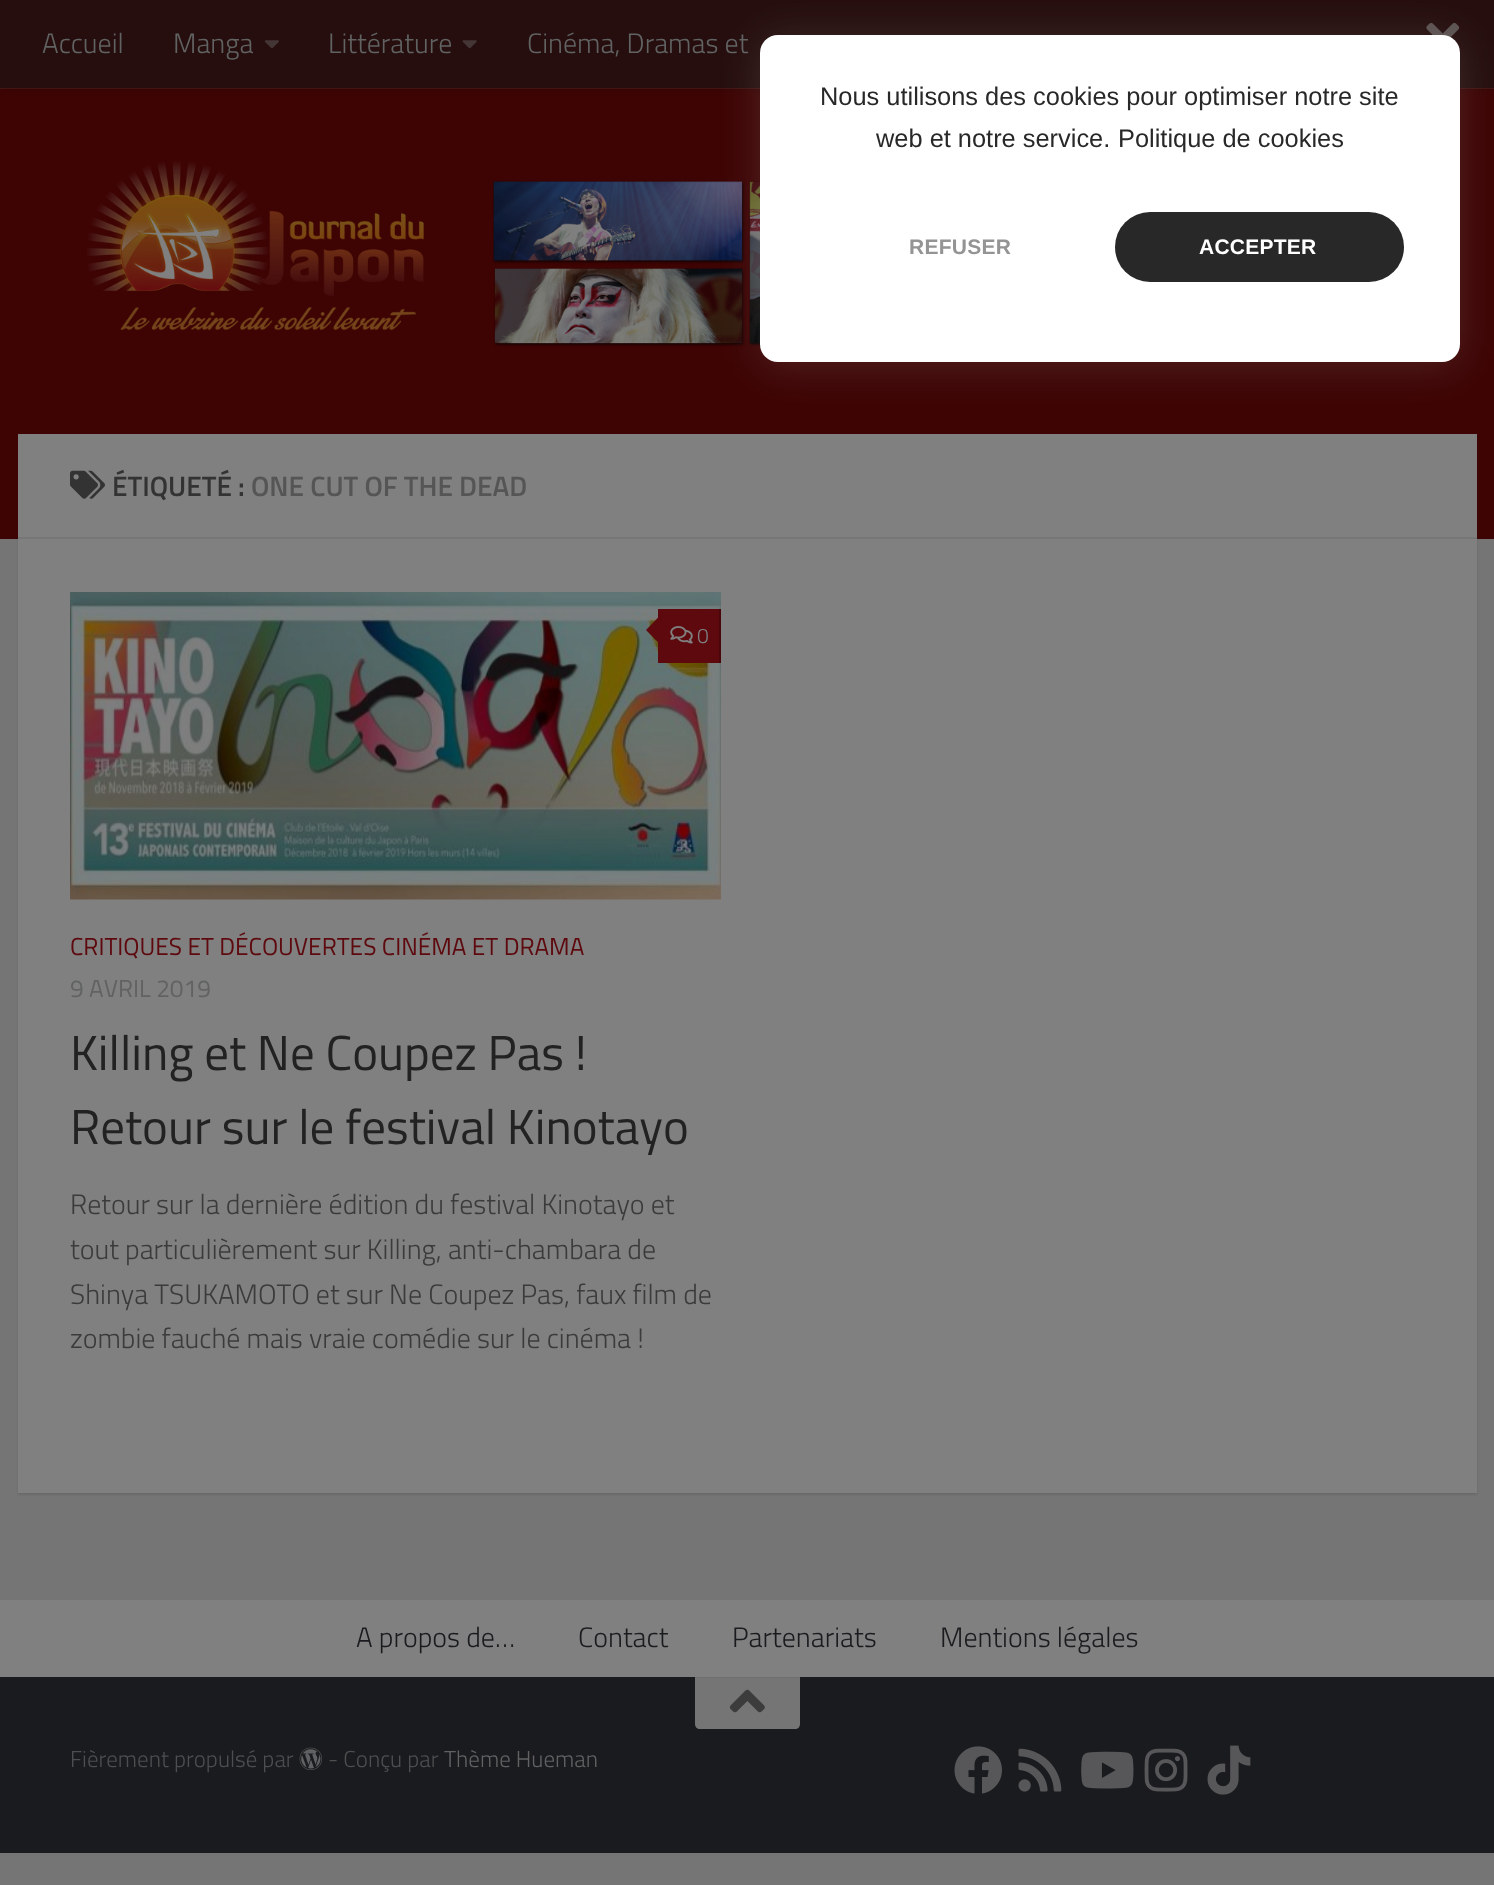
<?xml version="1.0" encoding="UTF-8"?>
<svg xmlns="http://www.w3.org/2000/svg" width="1494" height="1885">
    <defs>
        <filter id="blur1" x="-50%" y="-200%" width="200%" height="500%"><feGaussianBlur stdDeviation="1"/></filter>
        <filter id="blur2" x="-50%" y="-200%" width="200%" height="500%"><feGaussianBlur stdDeviation="4.5"/></filter>
        <filter id="blur3" x="-50%" y="-200%" width="200%" height="500%"><feGaussianBlur stdDeviation="21"/></filter>
    </defs>
    <rect width="100%" height="100%" fill="#757575"/>
    <rect x="18" y="436" width="1459" height="1059" fill="#000000" fill-opacity="0.1" filter="url(#blur1)"/>
    <rect x="0" y="89" width="1494" height="450" fill="#3E0404"/>
    <path d="M 0 88 V 89 H 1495 V 2 H 1494 V 88 Z" fill="#481716"/>
    <rect x="0" y="0" width="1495" height="88" fill="#000000" fill-opacity="0.2" filter="url(#blur2)"/>
    <rect x="0" y="0" width="1494" height="88" fill="#260E0E"/>
    <text x="42" y="53" font-family="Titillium" font-size="28" font-weight="300" fill="#616262">Accueil</text>
    <text x="173" y="53" font-family="Titillium" font-size="28" font-weight="300" fill="#616262">Manga</text>
    <image x="264" y="40" width="15" height="9" href="img_01.png"/>
    <text x="328" y="53" font-family="Titillium" font-size="28" font-weight="300" fill="#616262">Littérature</text>
    <image x="462" y="40" width="15" height="9" href="img_02.png"/>
    <text x="527" y="53" font-family="Titillium" font-size="28" font-weight="300" fill="#616262">Cinéma, Dramas et</text>
    <image x="1426" y="22" width="34" height="26" href="img_03.png"/>
    <image x="87" y="161" width="674" height="186" href="img_04.png"/>
    <rect x="18" y="434" width="1459" height="1059" fill="#808080"/>
    <rect x="18" y="537" width="1459" height="2" fill="#777777"/>
    <image x="70" y="470" width="35" height="29" href="img_05.png"/>
    <text x="112" y="496" font-family="Titillium" font-size="28" font-weight="600" fill="#333333">ÉTIQUETÉ :</text>
    <text x="251" y="496" font-family="Titillium" font-size="28" font-weight="600" fill="#555555">ONE CUT OF THE DEAD</text>
    <image x="70" y="592" width="651" height="308" href="img_06.png"/>
    <rect x="658" y="609" width="61" height="54" fill="#5D090E"/>
    <rect x="719" y="609" width="2" height="54" fill="#4A070B"/>
    <path d="M 661.5 614 V 646 L 646 630 Z" fill="#5D090E"/>
    <image x="670" y="626" width="23" height="18" href="img_07.png"/>
    <text x="697" y="643" font-family="Titillium" font-size="21" font-weight="300" fill="#808080">0</text>
    <text x="70" y="955" font-family="Titillium" font-size="24.5" fill="#5D090E">CRITIQUES ET DÉCOUVERTES CINÉMA ET DRAMA</text>
    <text x="70" y="997" font-family="Titillium" font-size="24.5" fill="#616262">9 AVRIL 2019</text>
    <text font-family="Titillium" font-size="49" fill="#222222">
        <tspan x="70" y="1070">Killing et Ne Coupez Pas !</tspan>
        <tspan x="70" y="1144">Retour sur le festival Kinotayo</tspan>
    </text>
    <text font-family="Titillium" font-size="28" font-weight="300" fill="#3B3B3B">
        <tspan x="70" y="1214">Retour sur la dernière édition du festival Kinotayo et</tspan>
        <tspan x="70" y="1259">tout particulièrement sur Killing, anti-chambara de</tspan>
        <tspan x="70" y="1304">Shinya TSUKAMOTO et sur Ne Coupez Pas, faux film de</tspan>
        <tspan x="70" y="1348">zombie fauché mais vraie comédie sur le cinéma !</tspan>
    </text>
    <rect x="0" y="1600" width="1494" height="77" fill="#808080"/>
    <text x="356" y="1647" font-family="Titillium" font-size="28" font-weight="300" fill="#1A1B1E">A propos de…</text>
    <text x="578" y="1647" font-family="Titillium" font-size="28" font-weight="300" fill="#1A1B1E">Contact</text>
    <text x="732" y="1647" font-family="Titillium" font-size="28" font-weight="300" fill="#1A1B1E">Partenariats</text>
    <text x="940" y="1647" font-family="Titillium" font-size="28" font-weight="300" fill="#1A1B1E">Mentions légales</text>
    <rect x="0" y="1677" width="1494" height="176" fill="#1A1B1E"/>
    <path d="M 695 1677 H 800 V 1724 C 800 1727 798 1729 795 1729 H 700 C 697 1729 695 1727 695 1724 Z" fill="#757575"/>
    <rect x="695" y="1677" width="105" height="1" fill="#6F6F6F"/>
    <image x="729" y="1689" width="36" height="24" href="img_08.png"/>
    <text x="70" y="1767" font-family="Titillium" font-size="23" font-weight="300" fill="#4D4E4F">Fièrement propulsé par</text>
    <image x="299" y="1747" width="23" height="23" href="img_09.png"/>
    <text x="328" y="1767" font-family="Titillium" font-size="23" font-weight="300" fill="#4D4E4F">- Conçu par</text>
    <text x="444" y="1767" font-family="Titillium" font-size="23" font-weight="300" fill="#616262">Thème Hueman</text>
    <image x="954" y="1746" width="48" height="48" href="img_10.png"/>
    <image x="1018" y="1748" width="44" height="44" href="img_11.png"/>
    <image x="1081" y="1751" width="53" height="38" href="img_12.png"/>
    <image x="1144" y="1748" width="44" height="44" href="img_13.png"/>
    <image x="1207" y="1745" width="44" height="50" href="img_14.png"/>
    <rect x="760" y="39" width="700" height="327" rx="18" fill="#9C9C9C" fill-opacity="0.2" filter="url(#blur3)"/>
    <rect x="760" y="35" width="700" height="327" rx="18" fill="#FFFFFF"/>
    <text x="820" y="105" font-family="Liberation Sans" font-size="25.4" fill="#282828">Nous utilisons des cookies pour optimiser notre site</text>
    <text x="876" y="147" font-family="Liberation Sans" font-size="25.4" fill="#282828">web et notre service.</text>
    <text x="1118" y="147" font-family="Liberation Sans" font-size="25.4" fill="#282828">Politique de cookies</text>
    <text x="909" y="254" font-family="Liberation Sans" font-size="21" font-weight="700" letter-spacing="0.25" fill="#949494">REFUSER</text>
    <rect x="1115" y="212" width="289" height="70" rx="35" fill="#282828"/>
    <text x="1199" y="254" font-family="Liberation Sans" font-size="21" font-weight="700" letter-spacing="0.25" fill="#FFFFFF">ACCEPTER</text>
</svg>
